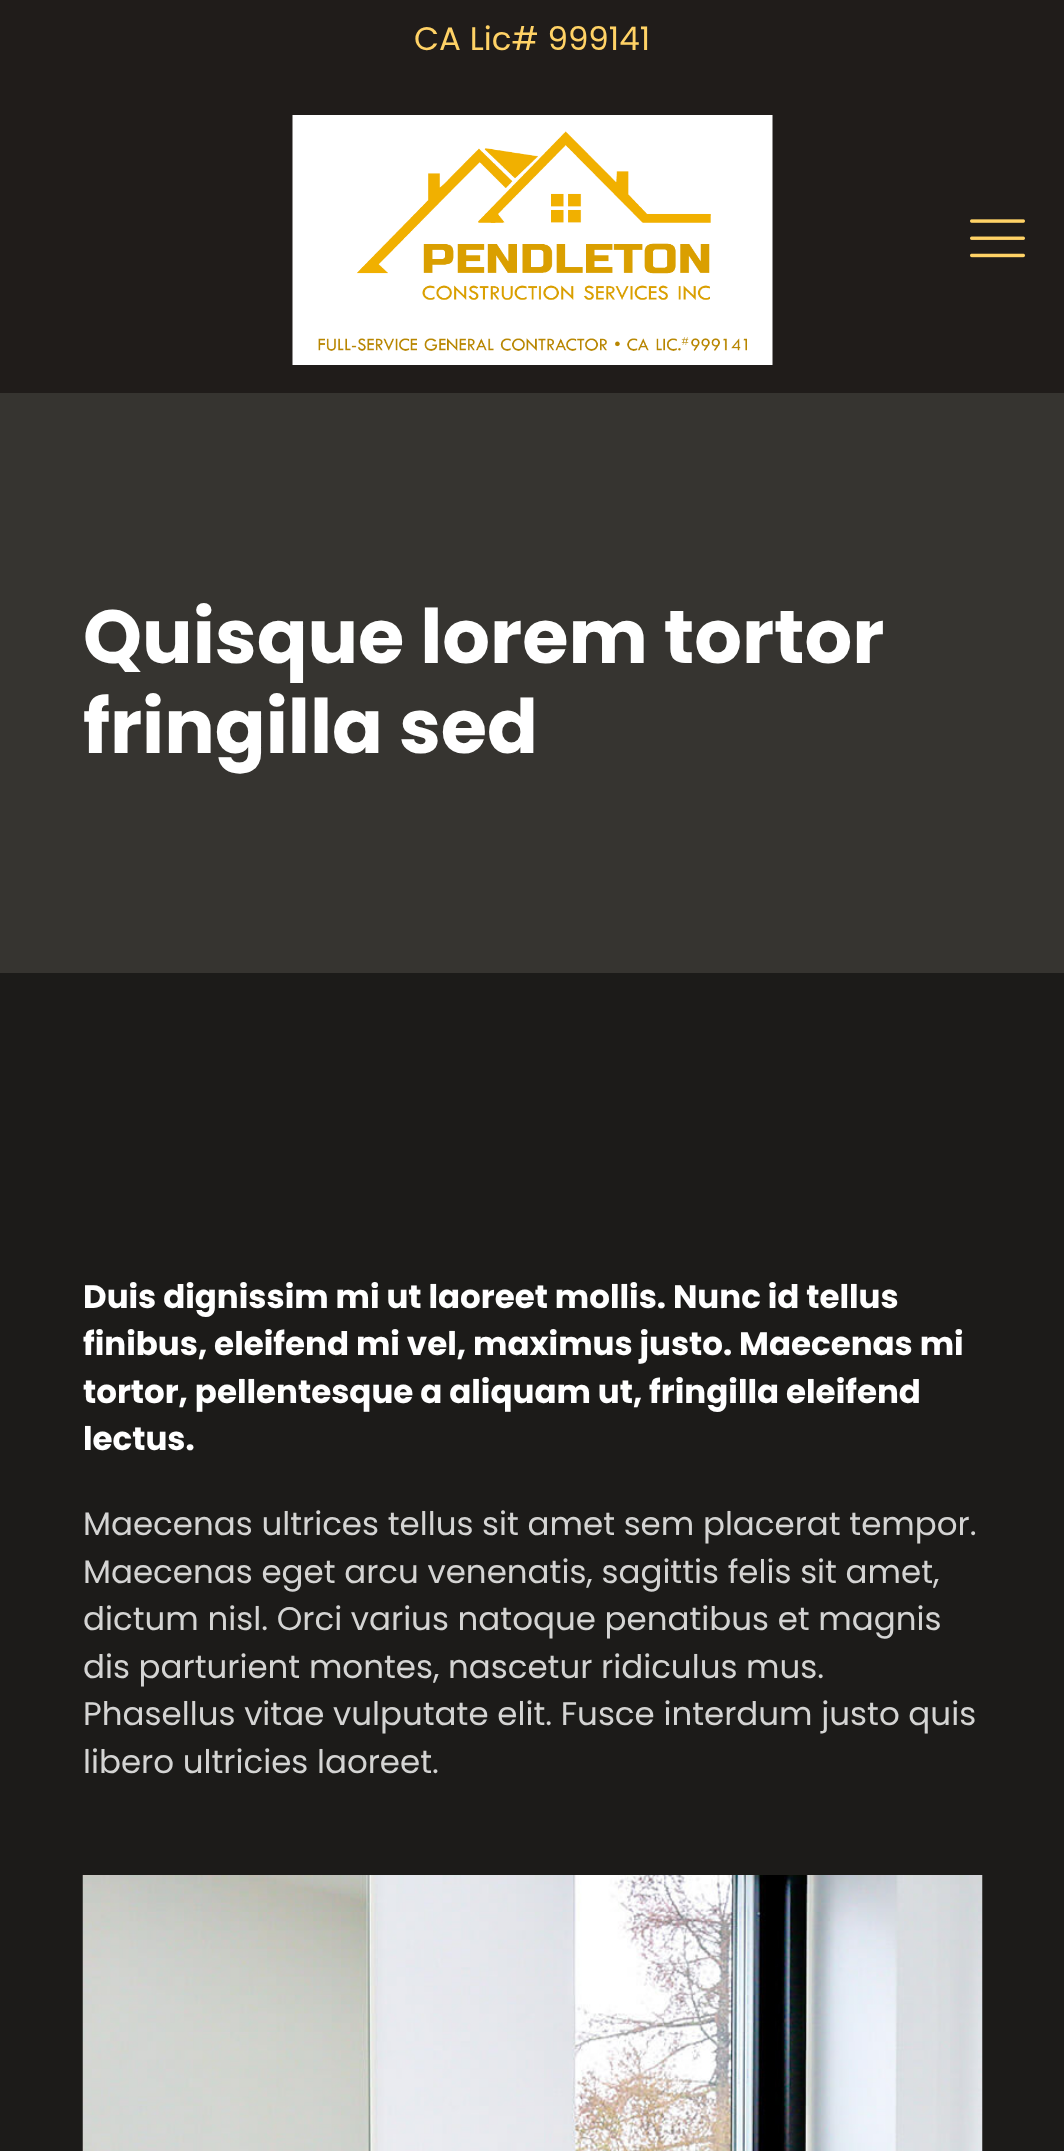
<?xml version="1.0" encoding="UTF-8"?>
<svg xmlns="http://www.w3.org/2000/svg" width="1064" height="2151">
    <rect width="100%" height="100%" fill="#1C1B19"/>
    <rect x="0" y="0" width="1064" height="393" fill="#201C1A"/>
    <text x="414" y="50" font-family="Poppins" font-size="32.5" fill="#FFD266">CA Lic# 999141</text>
    <image x="292" y="115" width="481" height="250" href="img_01.png"/>
    <image x="970" y="219" width="55" height="39" href="img_02.png"/>
    <rect x="0" y="393" width="1064" height="580" fill="#363430"/>
    <text font-family="Poppins" font-size="75" font-weight="700" fill="#FFFFFF">
        <tspan x="83" y="663">Quisque lorem tortor</tspan>
        <tspan x="83" y="753">fringilla sed</tspan>
    </text>
    <text font-family="Poppins" font-size="32.5" font-weight="700" fill="#FFFFFF">
        <tspan x="83" y="1308">Duis dignissim mi ut laoreet mollis. Nunc id tellus</tspan>
        <tspan x="83" y="1355">finibus, eleifend mi vel, maximus justo. Maecenas mi</tspan>
        <tspan x="83" y="1403">tortor, pellentesque a aliquam ut, fringilla eleifend</tspan>
        <tspan x="83" y="1450">lectus.</tspan>
    </text>
    <text font-family="Poppins" font-size="32.5" fill="#D4D4D3">
        <tspan x="83" y="1535">Maecenas ultrices tellus sit amet sem placerat tempor.</tspan>
        <tspan x="83" y="1583">Maecenas eget arcu venenatis, sagittis felis sit amet,</tspan>
        <tspan x="83" y="1630">dictum nisl. Orci varius natoque penatibus et magnis</tspan>
        <tspan x="83" y="1678">dis parturient montes, nascetur ridiculus mus.</tspan>
        <tspan x="83" y="1725">Phasellus vitae vulputate elit. Fusce interdum justo quis</tspan>
        <tspan x="83" y="1773">libero ultricies laoreet.</tspan>
    </text>
    <image x="82" y="1875" width="901" height="276" href="img_03.png"/>
</svg>
